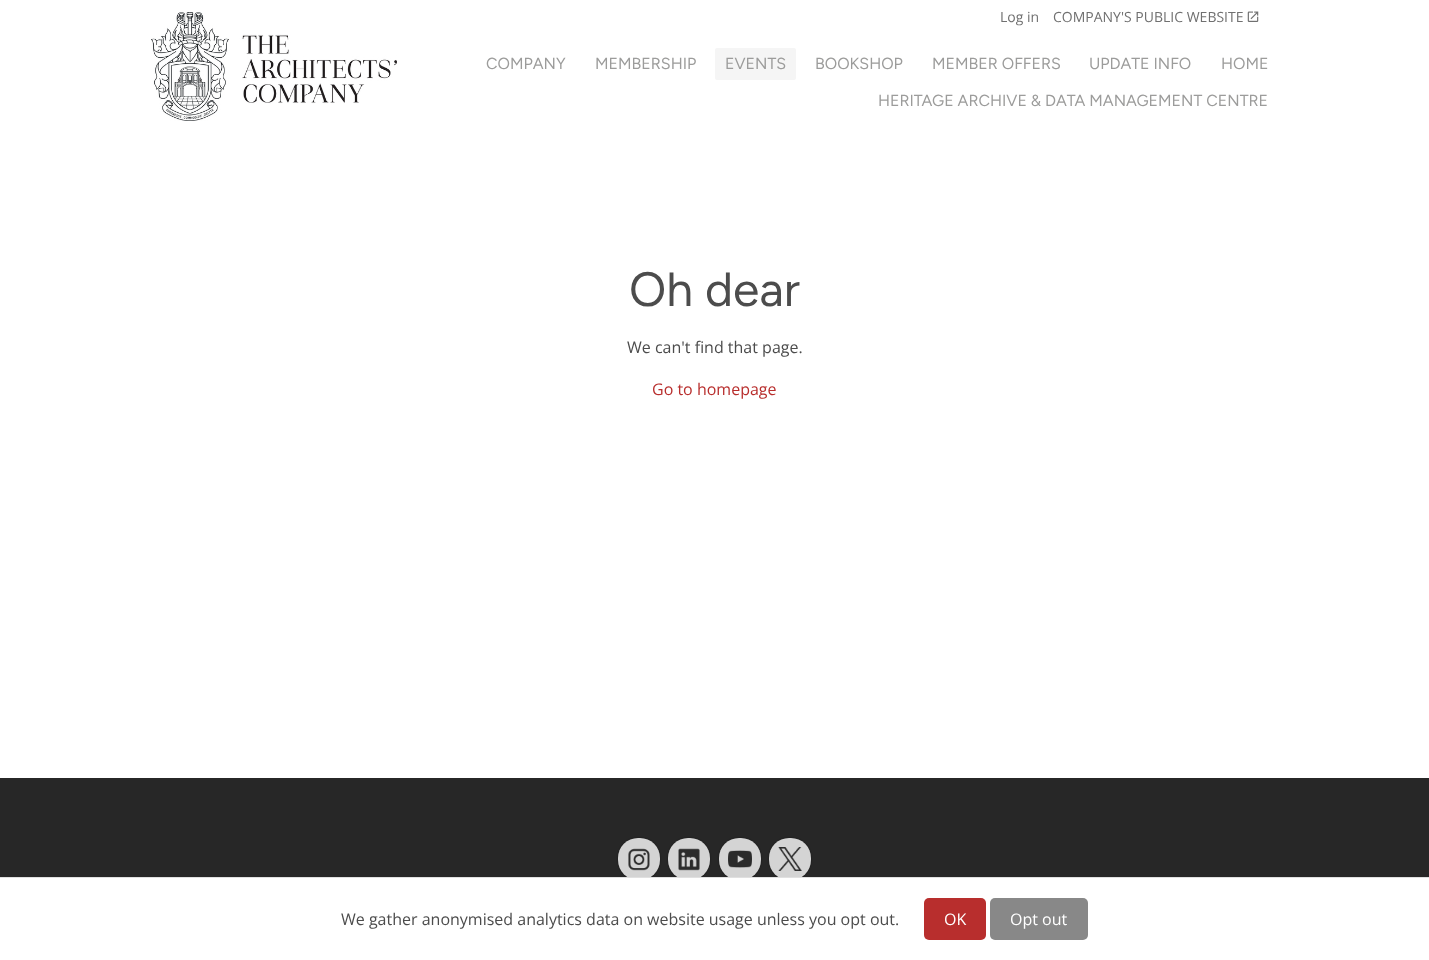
<?xml version="1.0" encoding="UTF-8"?>
<svg xmlns="http://www.w3.org/2000/svg" width="1429" height="960">
    <defs>
        <filter id="blur1" x="-50%" y="-200%" width="200%" height="500%"><feGaussianBlur stdDeviation="1"/></filter>
    </defs>
    <rect width="100%" height="100%" fill="#FFFFFF"/>
    <image x="151" y="12" width="246" height="109" href="img_01.png"/>
    <text x="1000" y="22" font-family="Open Sans" font-size="14" fill="#707070">Log in</text>
    <text x="1053" y="22" font-family="Open Sans" font-size="14" fill="#707070">COMPANY'S PUBLIC WEBSITE</text>
    <image x="1247" y="11" width="12" height="11" href="img_02.png"/>
    <text x="486" y="69" font-family="Figtree" font-size="16" fill="#9C9C9B">COMPANY</text>
    <text x="595" y="69" font-family="Figtree" font-size="16" fill="#9C9C9B">MEMBERSHIP</text>
    <rect x="715" y="48" width="81" height="32" rx="2" fill="#F5F5F5"/>
    <text x="725" y="69" font-family="Figtree" font-size="16" fill="#9C9C9B">EVENTS</text>
    <text x="815" y="69" font-family="Figtree" font-size="16" fill="#9C9C9B">BOOKSHOP</text>
    <text x="932" y="69" font-family="Figtree" font-size="16" fill="#9C9C9B">MEMBER OFFERS</text>
    <text x="1089" y="69" font-family="Figtree" font-size="16" fill="#9C9C9B">UPDATE INFO</text>
    <text x="1221" y="69" font-family="Figtree" font-size="16" fill="#9C9C9B">HOME</text>
    <text x="878" y="106" font-family="Figtree" font-size="16" fill="#9C9C9B">HERITAGE ARCHIVE &amp; DATA MANAGEMENT CENTRE</text>
    <text x="629" y="306" font-family="Figtree" font-size="48" fill="#4C4C4C">Oh dear</text>
    <text x="627" y="353" font-family="Open Sans" font-size="16" fill="#4C4C4C">We can't find that page.</text>
    <text x="652" y="395" font-family="Open Sans" font-size="16" fill="#B82E2D">Go to homepage</text>
    <rect x="0" y="778" width="1429" height="99" fill="#272727"/>
    <rect x="618" y="838" width="42" height="42" rx="20" fill="#080808" fill-opacity="0.4" filter="url(#blur1)"/>
    <rect x="618" y="838" width="42" height="42" rx="20" fill="#D4D4D4"/>
    <image x="628" y="848" width="22" height="23" href="img_03.png"/>
    <rect x="668" y="838" width="42" height="42" rx="20" fill="#080808" fill-opacity="0.4" filter="url(#blur1)"/>
    <rect x="668" y="838" width="42" height="42" rx="20" fill="#D4D4D4"/>
    <image x="678" y="848" width="22" height="23" href="img_04.png"/>
    <rect x="719" y="838" width="42" height="42" rx="20" fill="#080808" fill-opacity="0.4" filter="url(#blur1)"/>
    <rect x="719" y="838" width="42" height="42" rx="20" fill="#D4D4D4"/>
    <image x="728" y="850" width="24" height="18" href="img_05.png"/>
    <rect x="769" y="838" width="42" height="42" rx="20" fill="#080808" fill-opacity="0.4" filter="url(#blur1)"/>
    <rect x="769" y="838" width="42" height="42" rx="20" fill="#D4D4D4"/>
    <image x="778" y="847" width="24" height="24" href="img_06.png"/>
    <rect x="626" y="878" width="177" height="4" fill="#FFFFFF"/>
    <rect x="0" y="877" width="1429" height="1" fill="#E0E0E0"/>
    <text x="341" y="925" font-family="Open Sans" font-size="16" fill="#4C4C4C">We gather anonymised analytics data on website usage unless you opt out.</text>
    <rect x="924" y="898" width="62" height="42" rx="5" fill="#B82E2D"/>
    <text x="944" y="925" font-family="Open Sans" font-size="16" fill="#FFFFFF">OK</text>
    <rect x="990" y="898" width="98" height="42" rx="5" fill="#888888"/>
    <text x="1010" y="925" font-family="Open Sans" font-size="16" fill="#FFFFFF">Opt out</text>
</svg>
